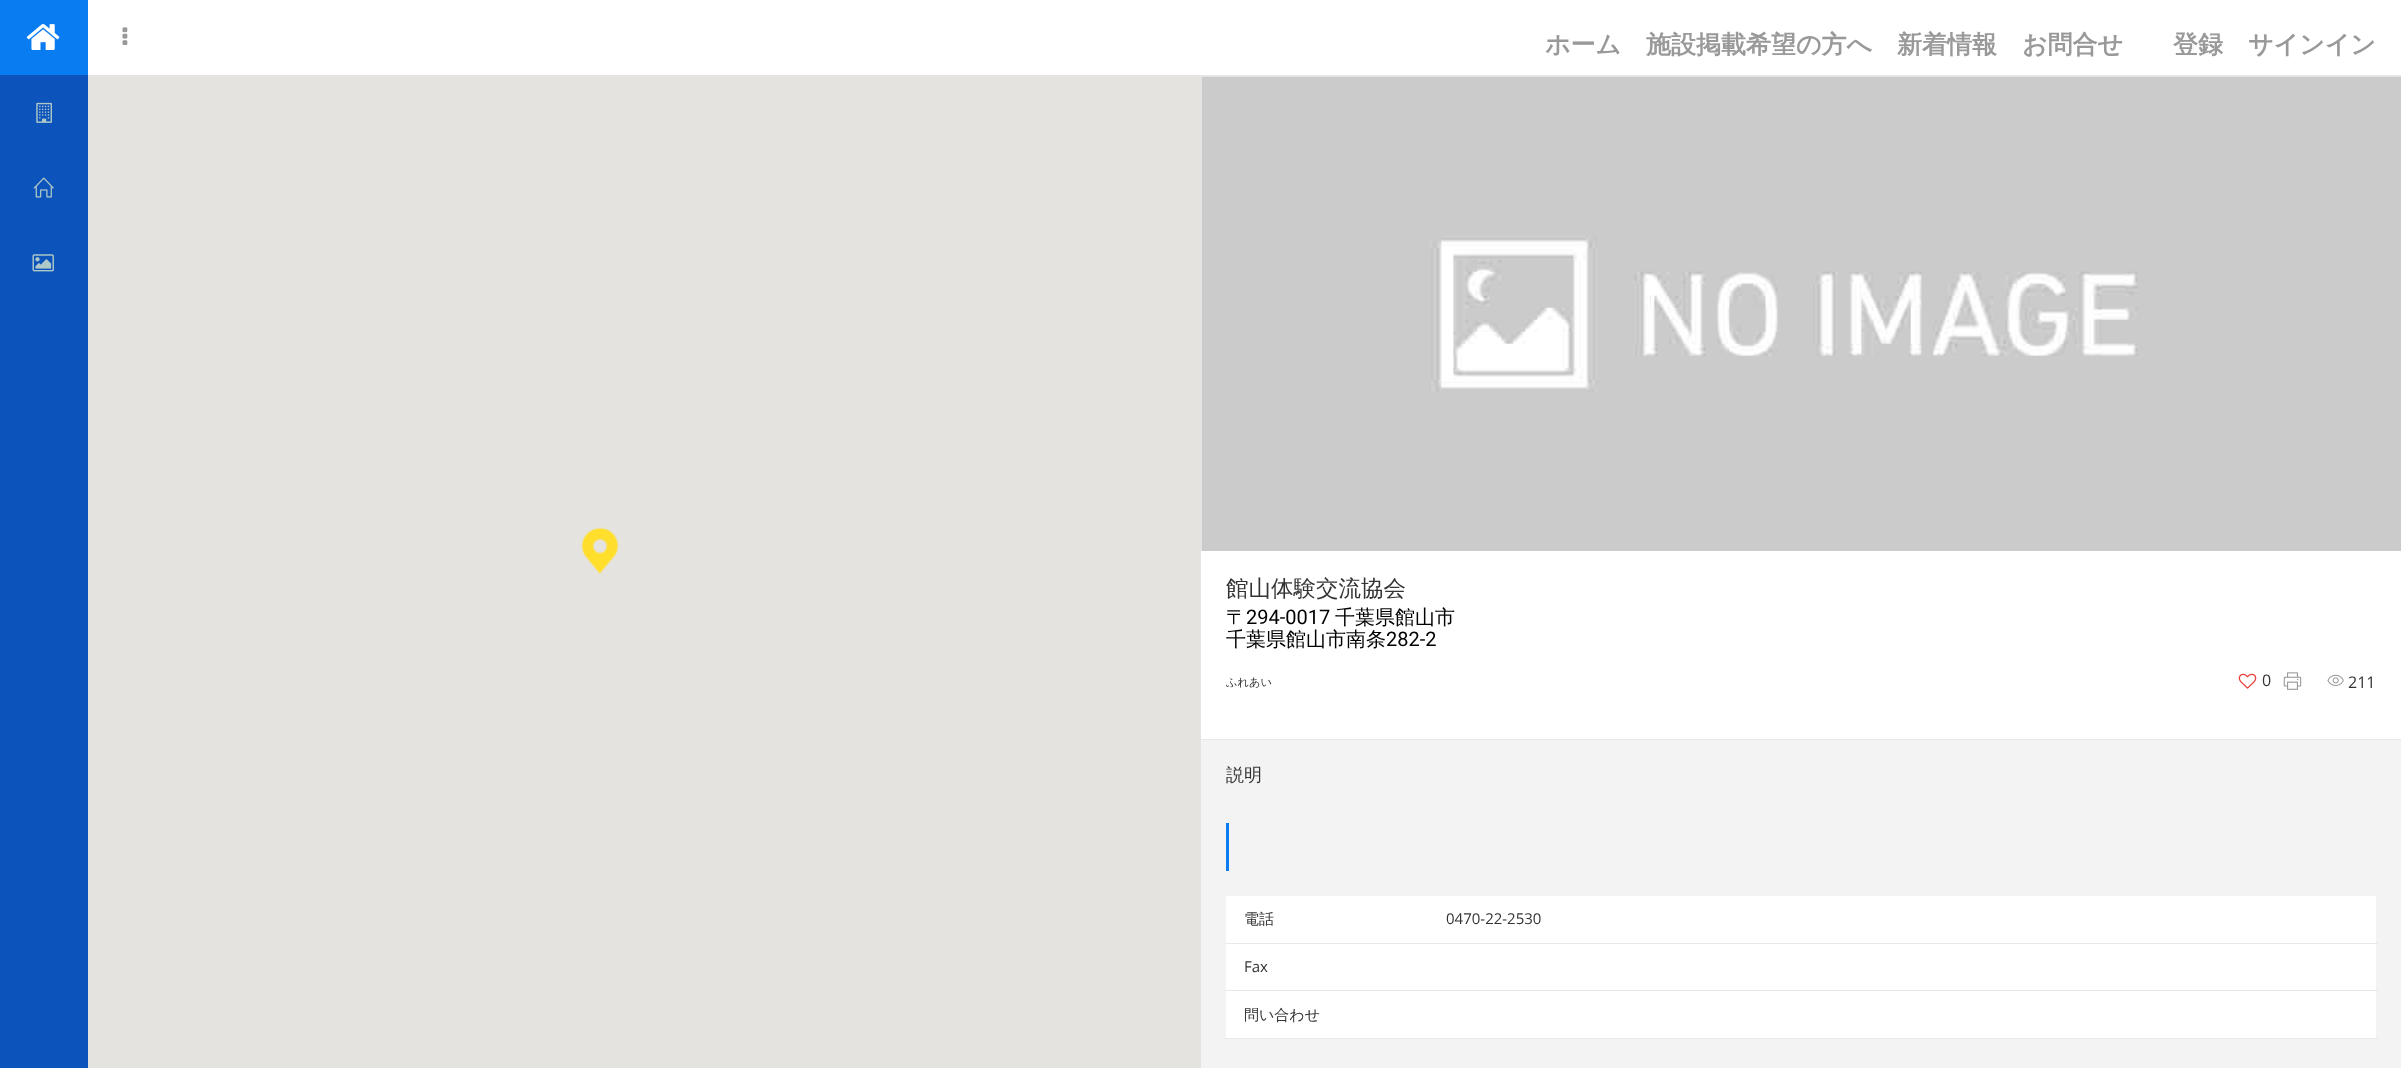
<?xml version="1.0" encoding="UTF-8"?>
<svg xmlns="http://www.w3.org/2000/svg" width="2401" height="1068">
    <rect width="100%" height="100%" fill="#FFFFFF"/>
    <rect x="0" y="0" width="88" height="75" fill="#097CF2"/>
    <image x="26" y="24" width="34" height="26" href="img_01.png"/>
    <image x="122" y="27" width="6" height="18" href="img_02.png"/>
    <text x="1545" y="53" font-family="WenQuanYi Zen Hei" font-size="25" font-weight="700" fill="#999999">ホーム</text>
    <text x="1646" y="53" font-family="WenQuanYi Zen Hei" font-size="25" font-weight="700" fill="#999999">施設掲載希望の方へ</text>
    <text x="1897" y="53" font-family="WenQuanYi Zen Hei" font-size="25" font-weight="700" fill="#999999">新着情報</text>
    <text x="2022" y="53" font-family="WenQuanYi Zen Hei" font-size="25" font-weight="700" fill="#999999">お問合せ</text>
    <text x="2173" y="53" font-family="WenQuanYi Zen Hei" font-size="25" font-weight="700" fill="#999999">登録</text>
    <text x="2248" y="53" font-family="WenQuanYi Zen Hei" font-size="25" font-weight="700" fill="#999999">サインイン</text>
    <rect x="0" y="75" width="88" height="993" fill="#0D53BC"/>
    <image x="36" y="102" width="16" height="21" href="img_03.png"/>
    <image x="33" y="177" width="21" height="21" href="img_04.png"/>
    <image x="32" y="254" width="22" height="18" href="img_05.png"/>
    <rect x="88" y="75" width="1113" height="993" fill="#E5E3DF"/>
    <image x="581" y="527" width="38" height="47" href="img_06.png"/>
    <rect x="1201" y="740" width="1200" height="328" fill="#F3F3F3"/>
    <rect x="1201" y="75" width="1200" height="1" fill="#E8E8E8"/>
    <rect x="1201" y="739" width="1200" height="1" fill="#E8E8E8"/>
    <image x="1201" y="76" width="1200" height="475" href="img_07.png"/>
    <text x="1226" y="596" font-family="WenQuanYi Zen Hei" font-size="22.5" font-weight="500" fill="#333333">館山体験交流協会</text>
    <text x="1226" y="624" font-family="WenQuanYi Zen Hei" font-size="20" font-weight="500" fill="#000000">〒</text>
    <text x="1246" y="624" font-family="Roboto" font-size="20" fill="#000000">294-0017</text>
    <text x="1335" y="624" font-family="WenQuanYi Zen Hei" font-size="20" font-weight="500" fill="#000000">千葉県館山市</text>
    <text x="1226" y="646" font-family="WenQuanYi Zen Hei" font-size="20" font-weight="500" fill="#000000">千葉県館山市南条</text>
    <text x="1386" y="646" font-family="Roboto" font-size="20" fill="#000000">282-2</text>
    <text x="1226" y="686" font-family="WenQuanYi Zen Hei" font-size="11.25" font-weight="500" fill="#333333">ふれあい</text>
    <image x="2238" y="673" width="19" height="16" href="img_08.png"/>
    <text x="2262" y="686" font-family="Open Sans" font-size="16" fill="#333333">0</text>
    <image x="2283" y="672" width="19" height="18" href="img_09.png"/>
    <image x="2327" y="674" width="17" height="12" href="img_10.png"/>
    <text x="2348" y="688" font-family="Open Sans" font-size="16" fill="#333333">211</text>
    <text x="1226" y="781" font-family="WenQuanYi Zen Hei" font-size="18" font-weight="500" fill="#333333">説明</text>
    <rect x="1226" y="823" width="3" height="48" fill="#097CF2"/>
    <rect x="1226" y="896" width="1150" height="47" fill="#FFFFFF"/>
    <text x="1244" y="924" font-family="WenQuanYi Zen Hei" font-size="15" font-weight="500" fill="#333333">電話</text>
    <rect x="1225" y="943" width="1153" height="1" fill="#E8E8E8"/>
    <text x="1446" y="924" font-family="Open Sans" font-size="15" fill="#333333">0470-22-2530</text>
    <rect x="1226" y="944" width="1150" height="46" fill="#FFFFFF"/>
    <text x="1244" y="972" font-family="Open Sans" font-size="15" fill="#333333">Fax</text>
    <rect x="1225" y="990" width="1153" height="1" fill="#E8E8E8"/>
    <rect x="1226" y="991" width="1150" height="47" fill="#FFFFFF"/>
    <text x="1244" y="1020" font-family="WenQuanYi Zen Hei" font-size="15" font-weight="500" fill="#333333">問い合わせ</text>
    <rect x="1225" y="1038" width="1153" height="1" fill="#E8E8E8"/>
</svg>
